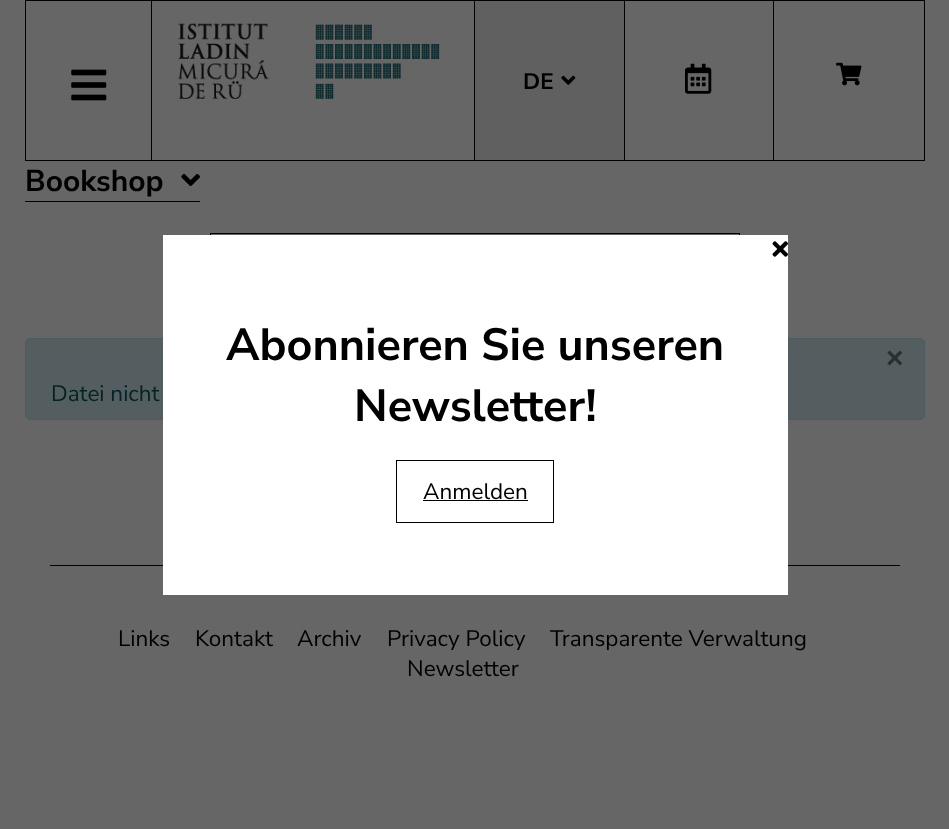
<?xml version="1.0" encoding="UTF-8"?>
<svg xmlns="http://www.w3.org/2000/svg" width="949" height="829">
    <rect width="100%" height="100%" fill="#666666"/>
    <rect x="25.5" y="0.5" width="899" height="160" fill="none" stroke="#000000"/>
    <rect x="474" y="1" width="1" height="159" fill="#000000"/>
    <rect x="151" y="1" width="1" height="159" fill="#000000"/>
    <image x="71" y="69" width="36" height="32" href="img_01.png"/>
    <image x="178" y="23" width="262" height="76" href="img_02.png"/>
    <rect x="624" y="1" width="1" height="159" fill="#000000"/>
    <rect x="475" y="1" width="149" height="159" fill="#606060"/>
    <text x="523" y="89" font-family="Nunito Sans" font-size="22.5" font-weight="700" fill="#000000">DE</text>
    <image x="561" y="75" width="15" height="10" href="img_03.png"/>
    <rect x="773" y="1" width="1" height="159" fill="#000000"/>
    <image x="685" y="63" width="27" height="31" href="img_04.png"/>
    <image x="836" y="62" width="26" height="24" href="img_05.png"/>
    <rect x="25" y="201" width="175" height="1" fill="#000000"/>
    <text x="25" y="191" font-family="Nunito Sans" font-size="30" font-weight="700" fill="#000000">Bookshop</text>
    <image x="181" y="174" width="19" height="12" href="img_06.png"/>
    <rect x="210.5" y="233.5" width="529" height="44" fill="none" stroke="#000000"/>
    <rect x="25.5" y="338.5" width="899" height="81" rx="4.5" fill="#545E60" stroke="#4C5C5E"/>
    <rect x="50" y="565" width="850" height="1" fill="#000000"/>
    <rect x="163" y="235" width="625" height="360" fill="#FFFFFF"/>
    <image x="772" y="241" width="16" height="16" href="img_07.png"/>
    <text x="226" y="360" font-family="Nunito Sans" font-size="45" font-weight="700" fill="#000000">Abonnieren Sie unseren</text>
    <text x="354" y="421" font-family="Nunito Sans" font-size="45" font-weight="700" fill="#000000">Newsletter!</text>
    <rect x="396.5" y="460.5" width="157" height="62" fill="none" stroke="#000000"/>
    <text x="423" y="499" font-family="Nunito Sans" font-size="22.5" fill="#000000">Anmelden</text>
    <rect x="423" y="500" width="105" height="1" fill="#000000"/>
    <text x="886" y="368" font-family="Liberation Sans" font-size="30" font-weight="700" fill="#2A2F30">×</text>
    <text x="51" y="401" font-family="Nunito Sans" font-size="22.5" fill="#052226">Datei nicht</text>
    <text x="118" y="646" font-family="Nunito Sans" font-size="22.5" fill="#000000">Links</text>
    <text x="195" y="646" font-family="Nunito Sans" font-size="22.5" fill="#000000">Kontakt</text>
    <text x="297" y="646" font-family="Nunito Sans" font-size="22.5" fill="#000000">Archiv</text>
    <text x="387" y="646" font-family="Nunito Sans" font-size="22.5" fill="#000000">Privacy Policy</text>
    <text x="550" y="646" font-family="Nunito Sans" font-size="22.5" fill="#000000">Transparente Verwaltung</text>
    <text x="407" y="676" font-family="Nunito Sans" font-size="22.5" fill="#000000">Newsletter</text>
</svg>
